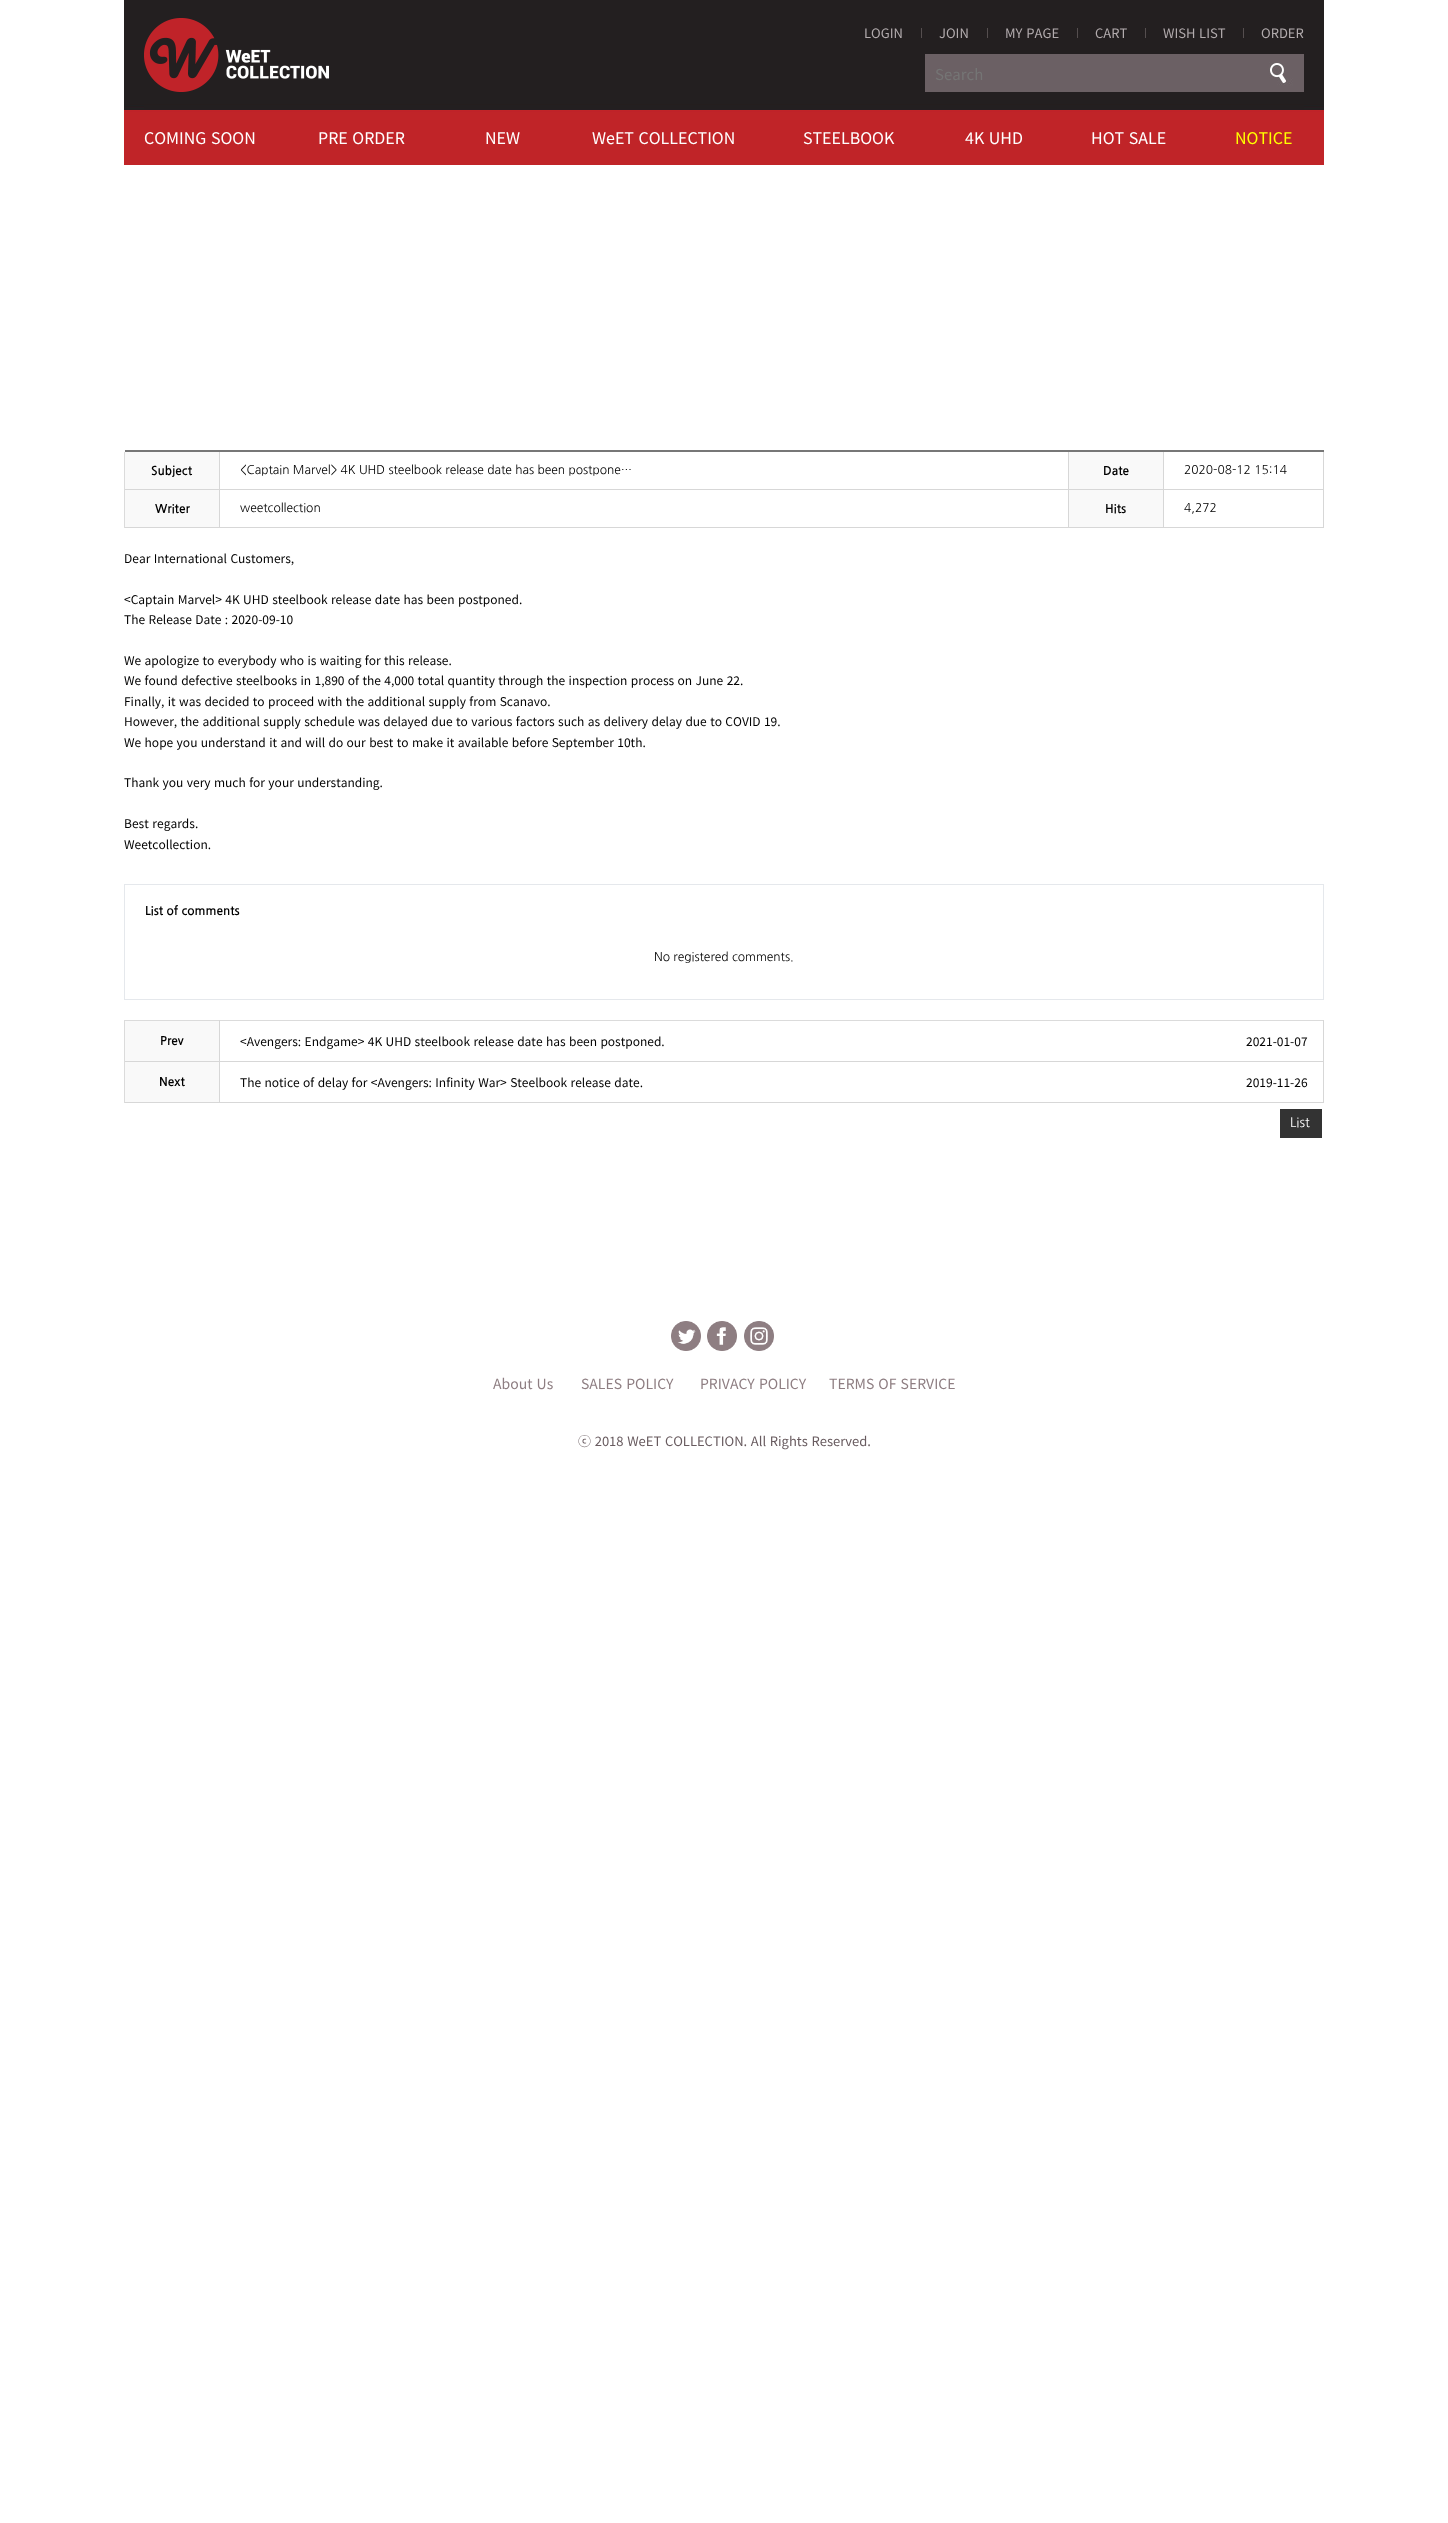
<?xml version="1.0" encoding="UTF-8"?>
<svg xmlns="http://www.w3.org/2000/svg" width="1448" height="2523">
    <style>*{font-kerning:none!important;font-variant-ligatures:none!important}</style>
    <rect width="100%" height="100%" fill="#FFFFFF"/>
    <image x="124" y="0" width="1200" height="165" href="img_01.png"/>
    <rect x="144" y="105" width="1160" height="4" fill="#231F20"/>
    <image x="144" y="18" width="185" height="74" href="img_02.png"/>
    <text x="864" y="38" font-family="Noto Sans KR" font-size="13" fill="#B2ABAD">LOGIN</text>
    <rect x="921" y="28" width="1" height="10" fill="#554E4F"/>
    <text x="939" y="38" font-family="Noto Sans KR" font-size="13" fill="#B2ABAD">JOIN</text>
    <rect x="987" y="28" width="1" height="10" fill="#554E4F"/>
    <text x="1005" y="38" word-spacing="1" font-family="Noto Sans KR" font-size="13" fill="#B2ABAD">MY PAGE</text>
    <rect x="1077" y="28" width="1" height="10" fill="#554E4F"/>
    <text x="1095" y="38" font-family="Noto Sans KR" font-size="13" fill="#B2ABAD">CART</text>
    <rect x="1145" y="28" width="1" height="10" fill="#554E4F"/>
    <text x="1163" y="38" word-spacing="0.75" font-family="Noto Sans KR" font-size="13" fill="#B2ABAD">WISH LIST</text>
    <rect x="1243" y="28" width="1" height="10" fill="#554E4F"/>
    <text x="1261" y="38" font-family="Noto Sans KR" font-size="13" fill="#B2ABAD">ORDER</text>
    <image x="925" y="54" width="379" height="38" href="img_03.png"/>
    <text x="935" y="80" font-family="Noto Sans KR" font-size="15" fill="#757575">Search</text>
    <text x="144" y="144" word-spacing="1" font-family="Noto Sans KR" font-size="16" fill="#FFFFFF">COMING SOON</text>
    <text x="318" y="144" word-spacing="1" font-family="Noto Sans KR" font-size="16" fill="#FFFFFF">PRE ORDER</text>
    <text x="485" y="144" font-family="Noto Sans KR" font-size="16" fill="#FFFFFF">NEW</text>
    <text x="592" y="144" word-spacing="1" font-family="Noto Sans KR" font-size="16" fill="#FFFFFF">WeET COLLECTION</text>
    <text x="803" y="144" font-family="Noto Sans KR" font-size="16" fill="#FFFFFF">STEELBOOK</text>
    <text x="965" y="144" word-spacing="1" font-family="Noto Sans KR" font-size="16" fill="#FFFFFF">4K UHD</text>
    <text x="1091" y="144" word-spacing="1" font-family="Noto Sans KR" font-size="16" fill="#FFFFFF">HOT SALE</text>
    <text x="1235" y="144" font-family="Noto Sans KR" font-size="16" fill="#FFFF01">NOTICE</text>
    <rect x="125" y="450" width="1199" height="2" fill="#777777"/>
    <rect x="125" y="452" width="94" height="37" fill="#F9F9F9"/>
    <rect x="1323" y="452" width="1" height="76" fill="#D7D7D7"/>
    <rect x="1163" y="527" width="161" height="1" fill="#D7D7D7"/>
    <rect x="1163" y="489" width="1" height="39" fill="#D7D7D7"/>
    <rect x="1163" y="489" width="161" height="1" fill="#D7D7D7"/>
    <rect x="1163" y="452" width="1" height="38" fill="#D7D7D7"/>
    <rect x="1068" y="527" width="96" height="1" fill="#D7D7D7"/>
    <rect x="1068" y="489" width="1" height="39" fill="#D7D7D7"/>
    <rect x="1068" y="489" width="96" height="1" fill="#D7D7D7"/>
    <rect x="1068" y="452" width="1" height="38" fill="#D7D7D7"/>
    <rect x="219" y="527" width="850" height="1" fill="#D7D7D7"/>
    <rect x="219" y="489" width="1" height="39" fill="#D7D7D7"/>
    <rect x="219" y="489" width="850" height="1" fill="#D7D7D7"/>
    <rect x="219" y="452" width="1" height="38" fill="#D7D7D7"/>
    <rect x="124" y="527" width="96" height="1" fill="#D7D7D7"/>
    <rect x="124" y="489" width="1" height="39" fill="#DBDBDB"/>
    <rect x="124" y="489" width="96" height="1" fill="#D7D7D7"/>
    <rect x="124" y="452" width="1" height="38" fill="#DBDBDB"/>
    <text x="151" y="475" font-family="NanumGothic" font-size="12" font-weight="700" fill="#000000">Subject</text>
    <text x="240" y="474" font-family="NanumGothic" font-size="12" fill="#000000">&lt;Captain Marvel&gt; 4K UHD steelbook release date has been postpone…</text>
    <rect x="1069" y="452" width="94" height="37" fill="#F9F9F9"/>
    <text x="1103" y="475" font-family="NanumGothic" font-size="12" font-weight="700" fill="#000000">Date</text>
    <text x="1184" y="474" font-family="NanumGothic" font-size="12" fill="#000000">2020-08-12 15:14</text>
    <rect x="125" y="490" width="94" height="37" fill="#F9F9F9"/>
    <text x="155" y="513" font-family="NanumGothic" font-size="12" font-weight="700" fill="#000000">Writer</text>
    <text x="240" y="512" font-family="NanumGothic" font-size="12" fill="#000000">weetcollection</text>
    <rect x="1069" y="490" width="94" height="37" fill="#F9F9F9"/>
    <text x="1105" y="513" font-family="NanumGothic" font-size="12" font-weight="700" fill="#000000">Hits</text>
    <text x="1184" y="512" font-family="NanumGothic" font-size="12" fill="#000000">4,272</text>
    <text x="124" y="563" word-spacing="0.7" font-family="Noto Sans KR" font-size="12" fill="#000000">Dear International Customers,</text>
    <text font-family="Noto Sans KR" font-size="12" fill="#000000">
        <tspan x="124" y="604" word-spacing="0.7">&lt;Captain Marvel&gt; 4K UHD steelbook release date has been postponed.</tspan>
        <tspan x="124" y="624" word-spacing="0.7">The Release Date : 2020-09-10</tspan>
    </text>
    <text font-family="Noto Sans KR" font-size="12" fill="#000000">
        <tspan x="124" y="665" word-spacing="0.7">We apologize to everybody who is waiting for this release.</tspan>
        <tspan x="124" y="685" word-spacing="0.7">We found defective steelbooks in 1,890 of the 4,000 total quantity through the inspection process on June 22.</tspan>
        <tspan x="124" y="706" word-spacing="0.7">Finally, it was decided to proceed with the additional supply from Scanavo.</tspan>
        <tspan x="124" y="726" word-spacing="0.7">However, the additional supply schedule was delayed due to various factors such as delivery delay due to COVID 19.</tspan>
        <tspan x="124" y="747" word-spacing="0.7">We hope you understand it and will do our best to make it available before September 10th.</tspan>
    </text>
    <text x="124" y="787" word-spacing="0.7" font-family="Noto Sans KR" font-size="12" fill="#000000">Thank you very much for your understanding.</text>
    <text font-family="Noto Sans KR" font-size="12" fill="#000000">
        <tspan x="124" y="828" word-spacing="1">Best regards.</tspan>
        <tspan x="124" y="849">Weetcollection.</tspan>
    </text>
    <rect x="124.5" y="884.5" width="1199" height="115" fill="none" stroke="#E5E8EC"/>
    <text x="145" y="915" font-family="NanumGothic" font-size="12" font-weight="700" fill="#000000">List of comments</text>
    <text x="654" y="961" font-family="NanumGothic" font-size="12" fill="#000000">No registered comments.</text>
    <rect x="125" y="1020" width="1199" height="1" fill="#DBDBDB"/>
    <rect x="125" y="1021" width="94" height="40" fill="#F9F9F9"/>
    <rect x="1323" y="1020" width="1" height="83" fill="#D7D7D7"/>
    <rect x="219" y="1102" width="1105" height="1" fill="#D7D7D7"/>
    <rect x="219" y="1061" width="1" height="42" fill="#D7D7D7"/>
    <rect x="219" y="1061" width="1105" height="1" fill="#D7D7D7"/>
    <rect x="219" y="1020" width="1" height="42" fill="#D7D7D7"/>
    <rect x="124" y="1102" width="96" height="1" fill="#D7D7D7"/>
    <rect x="124" y="1061" width="1" height="42" fill="#DBDBDB"/>
    <rect x="124" y="1061" width="96" height="1" fill="#D7D7D7"/>
    <rect x="124" y="1020" width="1" height="42" fill="#DBDBDB"/>
    <text x="160" y="1045" font-family="NanumGothic" font-size="12" font-weight="700" fill="#000000">Prev</text>
    <text x="240" y="1046" word-spacing="0.7" font-family="Noto Sans KR" font-size="12" fill="#000000">&lt;Avengers: Endgame&gt; 4K UHD steelbook release date has been postponed.</text>
    <text x="1246" y="1046" font-family="Noto Sans KR" font-size="12" fill="#000000">2021-01-07</text>
    <rect x="125" y="1062" width="94" height="40" fill="#F9F9F9"/>
    <text x="159" y="1086" font-family="NanumGothic" font-size="12" font-weight="700" fill="#000000">Next</text>
    <text x="240" y="1087" word-spacing="0.7" font-family="Noto Sans KR" font-size="12" fill="#000000">The notice of delay for &lt;Avengers: Infinity War&gt; Steelbook release date.</text>
    <text x="1246" y="1087" font-family="Noto Sans KR" font-size="12" fill="#000000">2019-11-26</text>
    <rect x="1280" y="1109" width="42" height="29" fill="#333333"/>
    <text x="1290" y="1127" font-family="NanumGothic" font-size="13" fill="#FFFFFF">List</text>
    <image x="671" y="1321" width="30" height="30" href="img_04.png"/>
    <image x="707" y="1321" width="30" height="30" href="img_05.png"/>
    <image x="744" y="1321" width="30" height="30" href="img_06.png"/>
    <text x="493" y="1389" word-spacing="1" font-family="Noto Sans KR" font-size="14" fill="#8E7E82">About Us</text>
    <text x="581" y="1389" word-spacing="1" font-family="Noto Sans KR" font-size="14" fill="#8E7E82">SALES POLICY</text>
    <text x="700" y="1389" word-spacing="1" font-family="Noto Sans KR" font-size="14" fill="#8E7E82">PRIVACY POLICY</text>
    <text x="829" y="1389" word-spacing="1" font-family="Noto Sans KR" font-size="14" fill="#8E7E82">TERMS OF SERVICE</text>
    <text x="578" y="1446" word-spacing="0.75" font-family="Noto Sans KR" font-size="13" fill="#685B5F">ⓒ 2018 WeET COLLECTION. All Rights Reserved.</text>
</svg>
